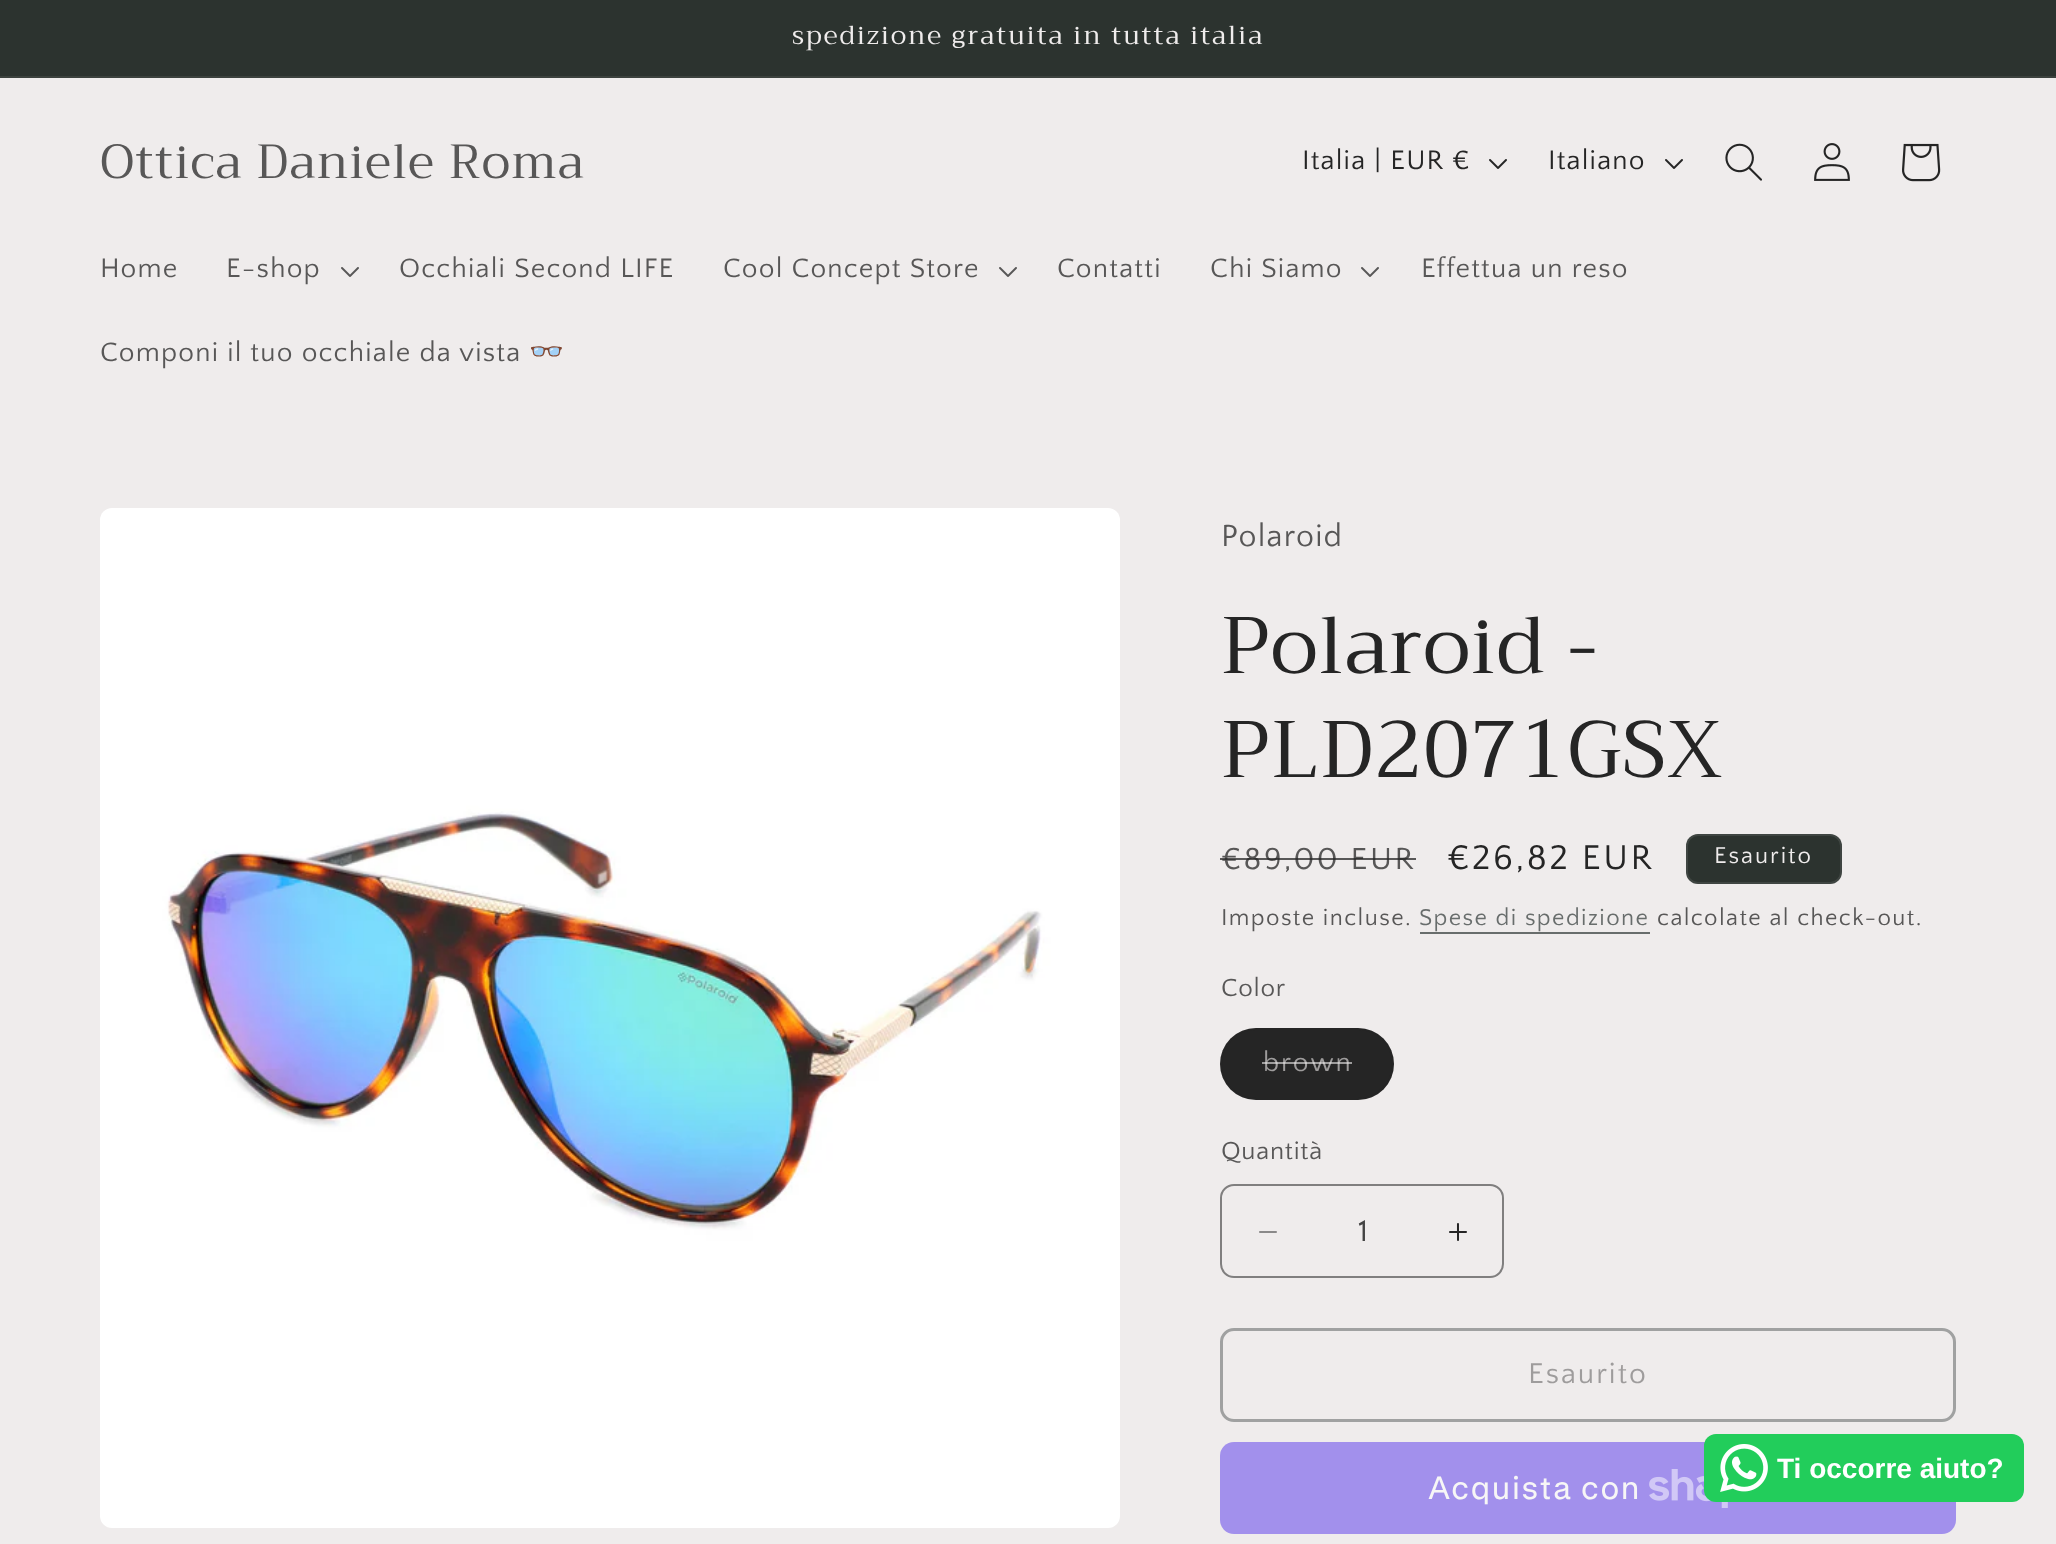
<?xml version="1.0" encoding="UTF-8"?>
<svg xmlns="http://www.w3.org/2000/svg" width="2056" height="1544">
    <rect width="100%" height="100%" fill="#EFECEC"/>
    <rect x="0" y="0" width="2056" height="76" fill="#2C332F"/>
    <rect x="0" y="76" width="2056" height="2" fill="#3C423E"/>
    <text x="792" y="44" font-family="Trirong" font-size="26" letter-spacing="2" fill="#EFECEC">spedizione gratuita in tutta italia</text>
    <text x="100" y="178" font-family="Trirong" font-size="48" letter-spacing="1.2" fill="#585757">Ottica Daniele Roma</text>
    <text x="1302" y="169" font-family="Quattrocento Sans" font-size="28" letter-spacing="1.2" fill="#252525">Italia | EUR €</text>
    <image x="1489" y="159" width="18" height="10" href="img_01.png"/>
    <text x="1548" y="169" font-family="Quattrocento Sans" font-size="28" letter-spacing="1.2" fill="#252525">Italiano</text>
    <image x="1665" y="159" width="18" height="10" href="img_01.png"/>
    <image x="1725" y="143" width="37" height="38" href="img_02.png"/>
    <image x="1814" y="143" width="36" height="38" href="img_03.png"/>
    <image x="1902" y="143" width="39" height="39" href="img_04.png"/>
    <text x="100" y="277" font-family="Quattrocento Sans" font-size="28" letter-spacing="1.2" fill="#585757">Home</text>
    <text x="226" y="277" font-family="Quattrocento Sans" font-size="28" letter-spacing="1.2" fill="#585757">E-shop</text>
    <image x="341" y="267" width="18" height="10" href="img_05.png"/>
    <text x="399" y="277" font-family="Quattrocento Sans" font-size="28" letter-spacing="1.2" fill="#585757">Occhiali Second LIFE</text>
    <text x="723" y="277" font-family="Quattrocento Sans" font-size="28" letter-spacing="1.2" fill="#585757">Cool Concept Store</text>
    <image x="999" y="267" width="18" height="10" href="img_05.png"/>
    <text x="1057" y="277" font-family="Quattrocento Sans" font-size="28" letter-spacing="1.2" fill="#585757">Contatti</text>
    <text x="1210" y="277" font-family="Quattrocento Sans" font-size="28" letter-spacing="1.2" fill="#585757">Chi Siamo</text>
    <image x="1361" y="267" width="18" height="10" href="img_05.png"/>
    <text x="1421" y="277" font-family="Quattrocento Sans" font-size="28" letter-spacing="1.2" fill="#585757">Effettua un reso</text>
    <text x="100" y="361" font-family="Quattrocento Sans" font-size="28" letter-spacing="1.2" fill="#585757">Componi il tuo occhiale da vista</text>
    <text x="529" y="361" font-family="Noto Color Emoji" font-size="28" letter-spacing="1.2" fill="#585757">👓</text>
    <image x="100" y="508" width="1020" height="1020" href="img_06.png"/>
    <text x="1221" y="546" font-family="Quattrocento Sans" font-size="32" letter-spacing="1.2" fill="#585757">Polaroid</text>
    <text font-family="Trirong" font-size="80" letter-spacing="1.2" fill="#252525">
        <tspan x="1221" y="673">Polaroid -</tspan>
        <tspan x="1221" y="777">PLD2071GSX</tspan>
    </text>
    <text x="1221" y="869" font-family="Quattrocento Sans" font-size="32" letter-spacing="2.6" fill="#585757">€89,00 EUR</text>
    <rect x="1220" y="858" width="196" height="2" fill="#252525" fill-opacity="0.75"/>
    <text x="1447" y="869" font-family="Quattrocento Sans" font-size="36" letter-spacing="2.6" fill="#252525">€26,82 EUR</text>
    <rect x="1686" y="834" width="156" height="50" rx="12" fill="#2C332F"/>
    <rect x="1687" y="835" width="154" height="48" rx="11" fill="none" stroke="#EFECEC" stroke-opacity="0.1" stroke-width="2"/>
    <text x="1714" y="863" font-family="Quattrocento Sans" font-size="24" letter-spacing="2" fill="#EFECEC">Esaurito</text>
    <text x="1221" y="925" font-family="Quattrocento Sans" font-size="24" letter-spacing="1.4" fill="#585757">Imposte incluse.</text>
    <text x="1419" y="925" font-family="Quattrocento Sans" font-size="24" letter-spacing="1.4" fill="#686D6C">Spese di spedizione</text>
    <rect x="1420" y="932" width="230" height="2" fill="#686D6C"/>
    <text x="1657" y="925" font-family="Quattrocento Sans" font-size="24" letter-spacing="1.4" fill="#585757">calcolate al check-out.</text>
    <text x="1221" y="996" font-family="Quattrocento Sans" font-size="26" letter-spacing="0.75" fill="#585757">Color</text>
    <rect x="1220" y="1028" width="174" height="72" rx="36" fill="#252525"/>
    <rect x="1221" y="1029" width="172" height="70" rx="35" fill="none" stroke="#252525" stroke-opacity="0.1" stroke-width="2"/>
    <text x="1263" y="1071" font-family="Quattrocento Sans" font-size="28" letter-spacing="2" fill="#9E9C9C">brown</text>
    <rect x="1262" y="1062" width="90" height="2" fill="#EFECEC" fill-opacity="0.6"/>
    <text x="1221" y="1159" font-family="Quattrocento Sans" font-size="26" letter-spacing="0.75" fill="#585757">Quantità</text>
    <image x="1259" y="1231" width="18" height="2" href="img_07.png"/>
    <image x="1449" y="1223" width="18" height="18" href="img_08.png"/>
    <rect x="1221" y="1185" width="282" height="92" rx="13" fill="none" stroke="#807F7F" stroke-width="2"/>
    <text x="1358" y="1241" font-family="Quattrocento Sans" font-size="32" fill="#434343">1</text>
    <rect x="1221.5" y="1329.5" width="733" height="91" rx="12.5" fill="none" stroke="#A0A1A1" stroke-width="3"/>
    <text x="1528" y="1383" font-family="Quattrocento Sans" font-size="30" letter-spacing="2" fill="#9E9C9C">Esaurito</text>
    <rect x="1220" y="1442" width="736" height="92" rx="14" fill="#A290EC"/>
    <text x="1428" y="1499" font-family="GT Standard" font-size="32" letter-spacing="1.2" fill="#F7F6F6">Acquista con</text>
    <image x="1649" y="1469" width="79" height="39" href="img_09.png"/>
    <rect x="1704" y="1434" width="320" height="68" rx="12" fill="#22CD5B"/>
    <image x="1720" y="1444" width="48" height="48" href="img_10.png"/>
    <text x="1777" y="1478" font-family="Liberation Sans" font-size="28" font-weight="700" fill="#FFFFFF">Ti occorre aiuto?</text>
</svg>
